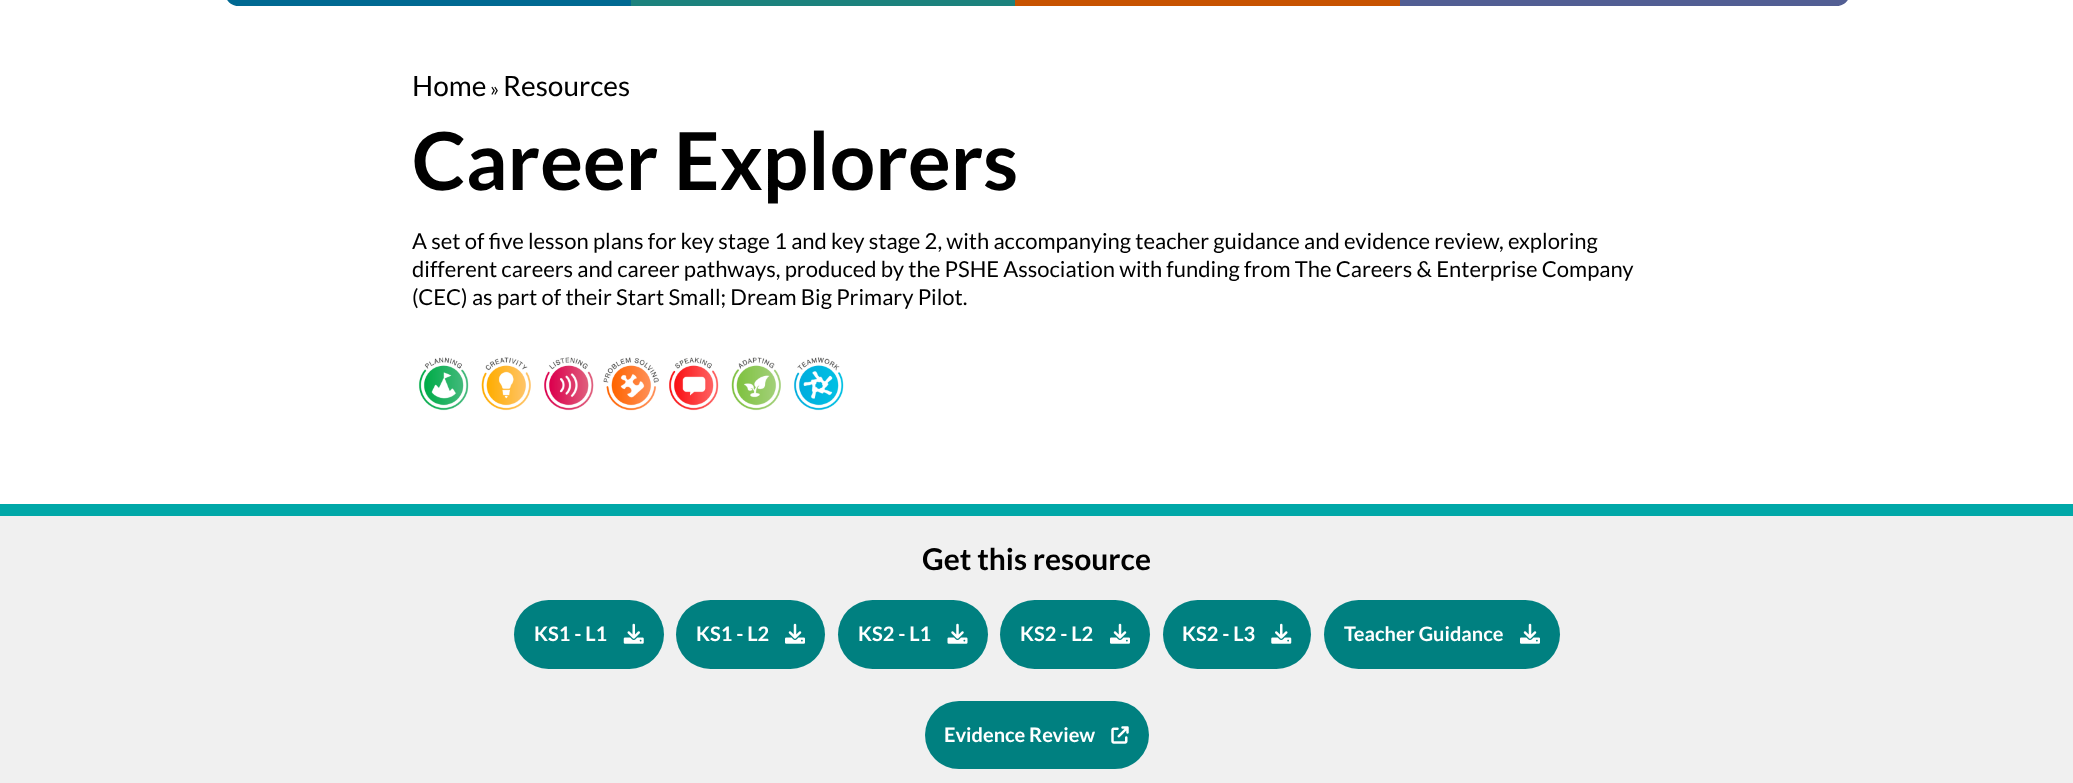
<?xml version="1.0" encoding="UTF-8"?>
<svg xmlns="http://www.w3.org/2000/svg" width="2073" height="783">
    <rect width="100%" height="100%" fill="#FFFFFF"/>
    <path d="M 238 -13 H 631 V 6 H 238 C 231 6 225 0 225 -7 V 0 C 225 -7 231 -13 238 -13 Z" fill="#006992"/>
    <rect x="631" y="0" width="384" height="6" fill="#1C827D"/>
    <rect x="1015" y="0" width="385" height="6" fill="#C75300"/>
    <path d="M 1400 -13 H 1837 C 1844 -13 1850 -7 1850 0 V -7 C 1850 0 1844 6 1837 6 H 1400 Z" fill="#525E93"/>
    <text x="412" y="96" font-family="Lato" font-size="28" fill="#000000">Home</text>
    <text x="490" y="96" font-family="Lato" font-size="20" fill="#000000">»</text>
    <text x="503" y="96" font-family="Lato" font-size="28" fill="#000000">Resources</text>
    <text x="412" y="190" font-family="Lato" font-size="80" font-weight="700" fill="#000000">Career Explorers</text>
    <text font-family="Lato" font-size="22" fill="#000000">
        <tspan x="412" y="249">A set of five lesson plans for key stage 1 and key stage 2, with accompanying teacher guidance and evidence review, exploring</tspan>
        <tspan x="412" y="277">different careers and career pathways, produced by the PSHE Association with funding from The Careers &amp; Enterprise Company</tspan>
        <tspan x="412" y="305">(CEC) as part of their Start Small; Dream Big Primary Pilot.</tspan>
    </text>
    <image x="418" y="357" width="51" height="54" href="img_01.png"/>
    <image x="481" y="357" width="50" height="54" href="img_02.png"/>
    <image x="544" y="357" width="50" height="54" href="img_03.png"/>
    <image x="603" y="357" width="56" height="54" href="img_04.png"/>
    <image x="669" y="357" width="50" height="54" href="img_05.png"/>
    <image x="731" y="357" width="50" height="54" href="img_06.png"/>
    <image x="793" y="357" width="51" height="54" href="img_07.png"/>
    <rect x="0" y="516" width="2073" height="267" fill="#F0F0F0"/>
    <rect x="0" y="504" width="2073" height="12" fill="#00A8A8"/>
    <text x="922" y="570" font-family="Lato" font-size="30" font-weight="700" fill="#000000">Get this resource</text>
    <rect x="514" y="600" width="150" height="69" rx="34.5" fill="#008080"/>
    <text x="534" y="641" font-family="Lato" font-size="20" font-weight="700" fill="#FFFFFF">KS1 - L1</text>
    <image x="623" y="623" width="21" height="21" href="img_08.png"/>
    <rect x="676" y="600" width="149" height="69" rx="34.5" fill="#008080"/>
    <text x="696" y="641" font-family="Lato" font-size="20" font-weight="700" fill="#FFFFFF">KS1 - L2</text>
    <image x="785" y="623" width="20" height="21" href="img_09.png"/>
    <rect x="838" y="600" width="150" height="69" rx="34.5" fill="#008080"/>
    <text x="858" y="641" font-family="Lato" font-size="20" font-weight="700" fill="#FFFFFF">KS2 - L1</text>
    <image x="947" y="623" width="21" height="21" href="img_10.png"/>
    <rect x="1000" y="600" width="150" height="69" rx="34.5" fill="#008080"/>
    <text x="1020" y="641" font-family="Lato" font-size="20" font-weight="700" fill="#FFFFFF">KS2 - L2</text>
    <image x="1110" y="623" width="20" height="21" href="img_09.png"/>
    <rect x="1163" y="600" width="148" height="69" rx="34.5" fill="#008080"/>
    <text x="1182" y="641" font-family="Lato" font-size="20" font-weight="700" fill="#FFFFFF">KS2 - L3</text>
    <image x="1271" y="623" width="21" height="21" href="img_11.png"/>
    <rect x="1324" y="600" width="236" height="69" rx="34.5" fill="#008080"/>
    <text x="1344" y="641" font-family="Lato" font-size="20" font-weight="700" fill="#FFFFFF">Teacher Guidance</text>
    <image x="1520" y="623" width="20" height="21" href="img_09.png"/>
    <rect x="925" y="701" width="224" height="68" rx="34" fill="#008080"/>
    <text x="944" y="742" font-family="Lato" font-size="20" font-weight="700" fill="#FFFFFF">Evidence Review</text>
    <image x="1111" y="726" width="18" height="18" href="img_12.png"/>
</svg>
